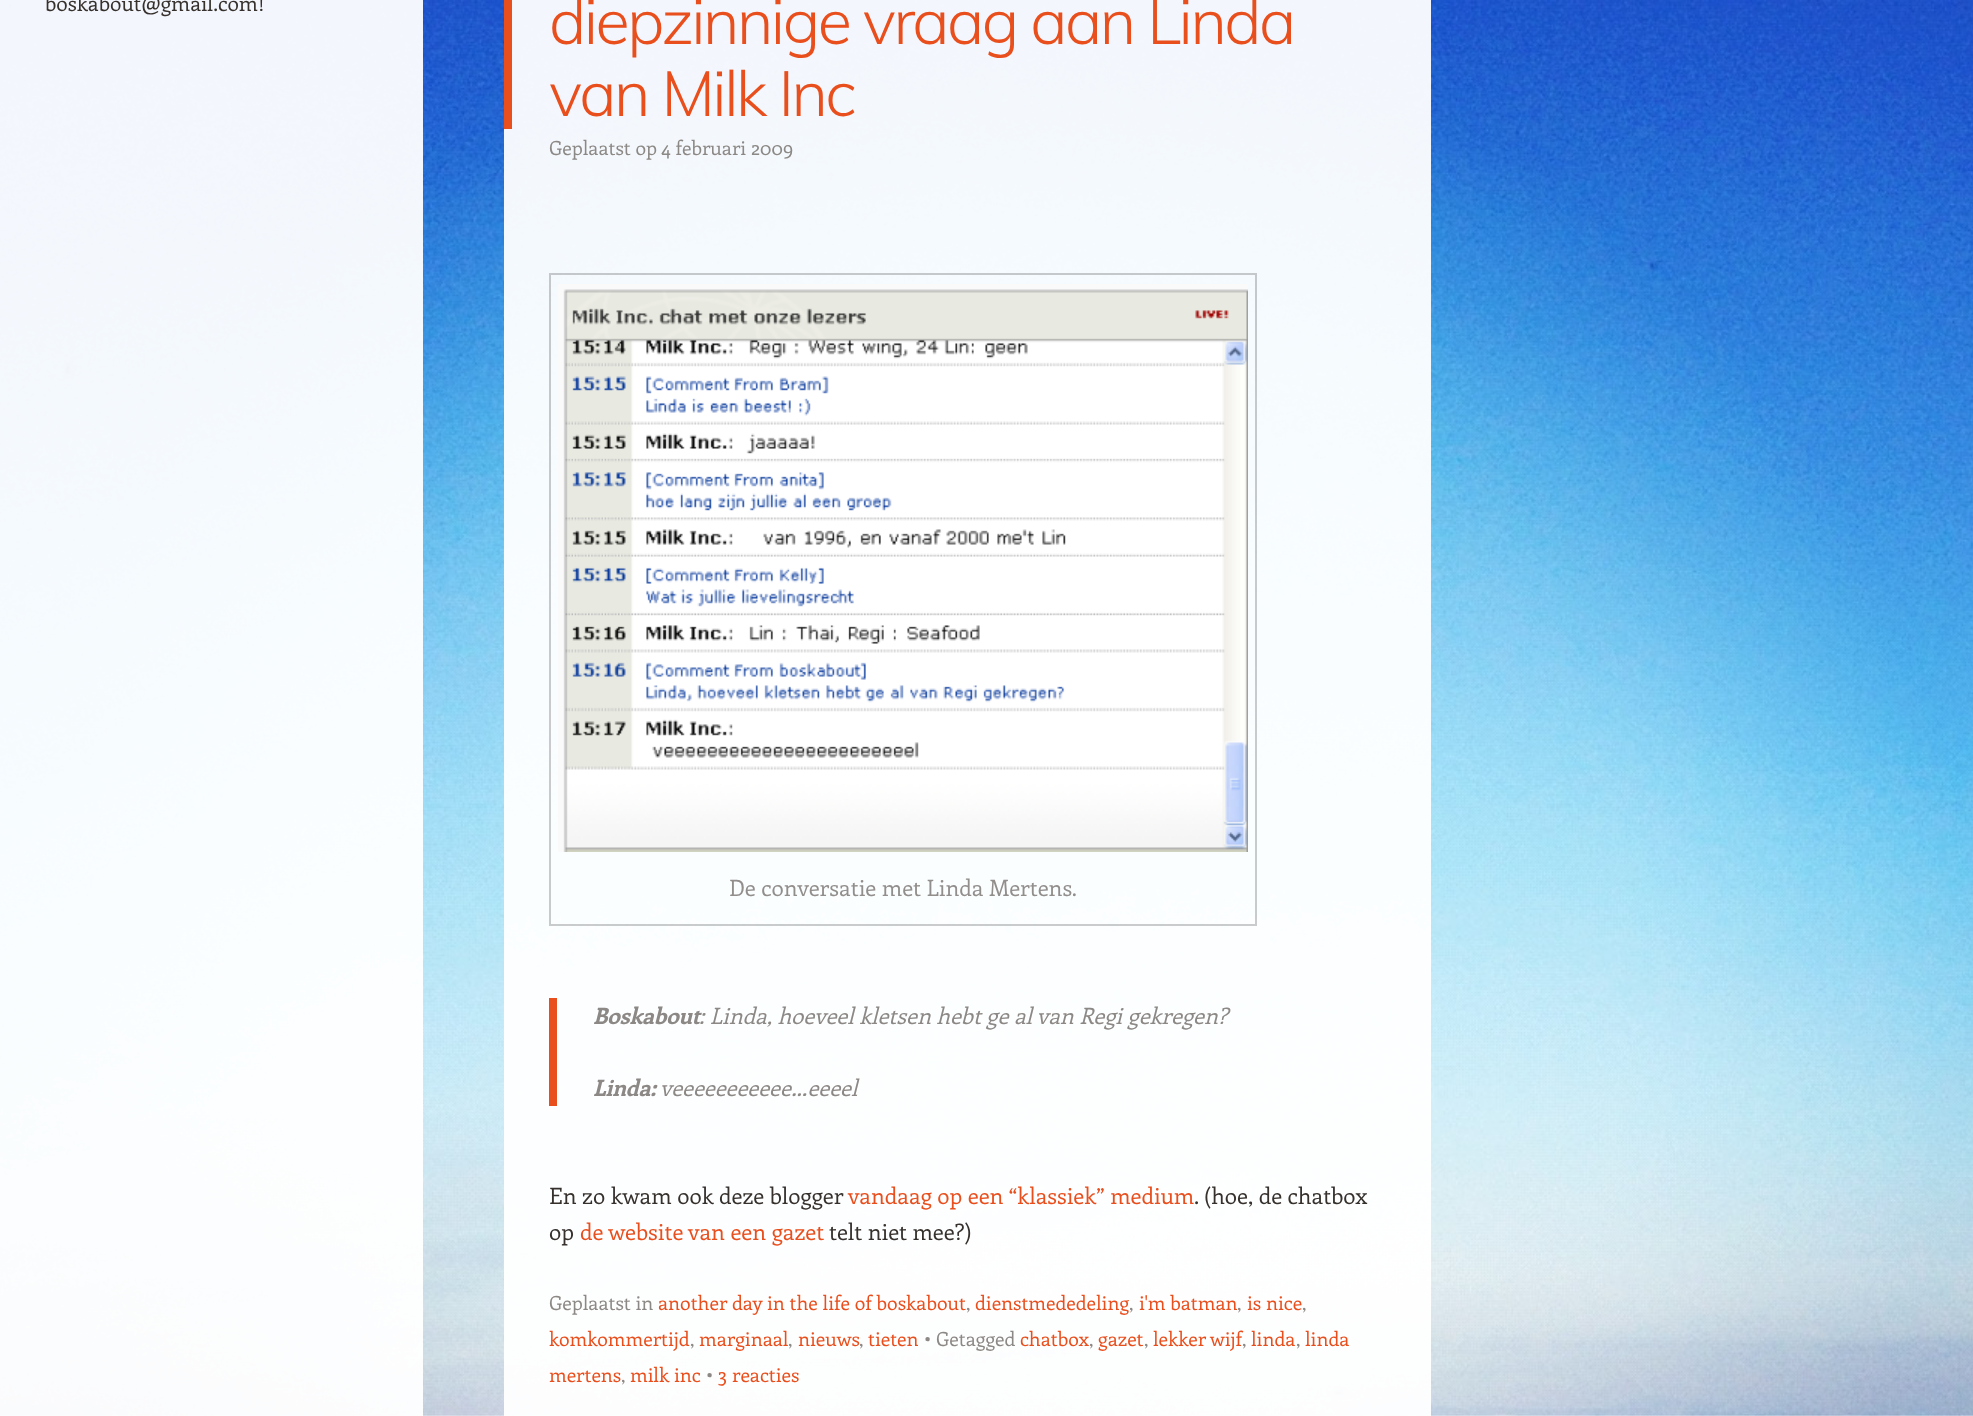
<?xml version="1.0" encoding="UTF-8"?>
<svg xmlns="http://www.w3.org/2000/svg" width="1973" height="1416">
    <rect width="100%" height="100%" fill="#FFFFFF"/>
    <image x="0" y="0" width="1973" height="1416" href="img_01.png"/>
    <rect x="0" y="0" width="423" height="1416" fill="#FFFFFF" fill-opacity="0.95"/>
    <text x="45" y="11" font-family="Enriqueta" font-size="21" fill="#36312D">boskabout@gmail.com!</text>
    <rect x="504" y="0" width="927" height="1416" fill="#FFFFFF" fill-opacity="0.95"/>
    <rect x="504" y="0" width="8" height="129" fill="#E94F1D"/>
    <text font-family="Muli" font-size="63" font-weight="300" letter-spacing="-2.5" fill="#E94F1D">
        <tspan x="549" y="44">diepzinnige vraag aan Linda</tspan>
        <tspan x="549" y="116">van Milk Inc</tspan>
    </text>
    <text x="549" y="155" font-family="Enriqueta" font-size="19.5" fill="#8C8885">Geplaatst op</text>
    <text x="661" y="155" font-family="Enriqueta" font-size="19.5" fill="#8C8885">4 februari 2009</text>
    <rect x="550" y="274" width="706" height="651" fill="none" stroke="#000000" stroke-opacity="0.2" stroke-width="2"/>
    <image x="558" y="284" width="690" height="568" href="img_02.png"/>
    <text x="729" y="896" font-family="Enriqueta" font-size="22.5" fill="#918E8C">De conversatie met Linda Mertens.</text>
    <rect x="549" y="998" width="8" height="108" fill="#E94F1D"/>
    <text x="593" y="1024" font-family="Enriqueta" font-size="22.5" font-weight="700" font-style="italic" fill="#8C8885">Boskabout</text>
    <text x="699" y="1024" font-family="Enriqueta" font-size="22.5" font-style="italic" fill="#8C8885">: Linda, hoeveel kletsen hebt ge al van Regi gekregen?</text>
    <text x="593" y="1096" font-family="Enriqueta" font-size="22.5" font-weight="700" font-style="italic" fill="#8C8885">Linda:</text>
    <text x="660" y="1096" font-family="Enriqueta" font-size="22.5" font-style="italic" fill="#8C8885">veeeeeeeeeee…eeeel</text>
    <text x="549" y="1204" font-family="Enriqueta" font-size="22.5" fill="#36312D">En zo kwam ook deze blogger</text>
    <text x="848" y="1204" font-family="Enriqueta" font-size="22.5" fill="#E94F1D">vandaag op een “klassiek” medium</text>
    <text x="1194" y="1204" font-family="Enriqueta" font-size="22.5" fill="#36312D">. (hoe, de chatbox</text>
    <text x="549" y="1240" font-family="Enriqueta" font-size="22.5" fill="#36312D">op</text>
    <text x="580" y="1240" font-family="Enriqueta" font-size="22.5" fill="#E94F1D">de website van een gazet</text>
    <text x="829" y="1240" font-family="Enriqueta" font-size="22.5" fill="#36312D">telt niet mee?)</text>
    <text x="549" y="1310" font-family="Enriqueta" font-size="19.5" fill="#8C8885">Geplaatst in</text>
    <text x="658" y="1310" font-family="Enriqueta" font-size="19.5" fill="#E94F1D">another day in the life of boskabout</text>
    <text x="966" y="1310" font-family="Enriqueta" font-size="19.5" fill="#8C8885">,</text>
    <text x="975" y="1310" font-family="Enriqueta" font-size="19.5" fill="#E94F1D">dienstmededeling</text>
    <text x="1129" y="1310" font-family="Enriqueta" font-size="19.5" fill="#8C8885">,</text>
    <text x="1139" y="1310" font-family="Enriqueta" font-size="19.5" fill="#E94F1D">i'm batman</text>
    <text x="1237" y="1310" font-family="Enriqueta" font-size="19.5" fill="#8C8885">,</text>
    <text x="1247" y="1310" font-family="Enriqueta" font-size="19.5" fill="#E94F1D">is nice</text>
    <text x="1302" y="1310" font-family="Enriqueta" font-size="19.5" fill="#8C8885">,</text>
    <text x="549" y="1346" font-family="Enriqueta" font-size="19.5" fill="#E94F1D">komkommertijd</text>
    <text x="690" y="1346" font-family="Enriqueta" font-size="19.5" fill="#8C8885">,</text>
    <text x="699" y="1346" font-family="Enriqueta" font-size="19.5" fill="#E94F1D">marginaal</text>
    <text x="788" y="1346" font-family="Enriqueta" font-size="19.5" fill="#8C8885">,</text>
    <text x="798" y="1346" font-family="Enriqueta" font-size="19.5" fill="#E94F1D">nieuws</text>
    <text x="859" y="1346" font-family="Enriqueta" font-size="19.5" fill="#8C8885">,</text>
    <text x="868" y="1346" font-family="Enriqueta" font-size="19.5" fill="#E94F1D">tieten</text>
    <text x="924" y="1346" font-family="Enriqueta" font-size="19.5" fill="#8C8885">• Getagged</text>
    <text x="1020" y="1346" font-family="Enriqueta" font-size="19.5" fill="#E94F1D">chatbox</text>
    <text x="1089" y="1346" font-family="Enriqueta" font-size="19.5" fill="#8C8885">,</text>
    <text x="1098" y="1346" font-family="Enriqueta" font-size="19.5" fill="#E94F1D">gazet</text>
    <text x="1144" y="1346" font-family="Enriqueta" font-size="19.5" fill="#8C8885">,</text>
    <text x="1153" y="1346" font-family="Enriqueta" font-size="19.5" fill="#E94F1D">lekker wijf</text>
    <text x="1251" y="1346" font-family="Enriqueta" font-size="19.5" fill="#E94F1D">linda</text>
    <text x="1305" y="1346" font-family="Enriqueta" font-size="19.5" fill="#E94F1D">linda</text>
    <text x="1242" y="1346" font-family="Enriqueta" font-size="19.5" fill="#8C8885">,</text>
    <text x="1296" y="1346" font-family="Enriqueta" font-size="19.5" fill="#8C8885">,</text>
    <text x="549" y="1382" font-family="Enriqueta" font-size="19.5" fill="#E94F1D">mertens</text>
    <text x="630" y="1382" font-family="Enriqueta" font-size="19.5" fill="#E94F1D">milk inc</text>
    <text x="706" y="1382" font-family="Enriqueta" font-size="19.5" fill="#8C8885">•</text>
    <text x="718" y="1382" font-family="Enriqueta" font-size="19.5" fill="#E94F1D">3 reacties</text>
    <text x="621" y="1382" font-family="Enriqueta" font-size="19.5" fill="#8C8885">,</text>
</svg>
